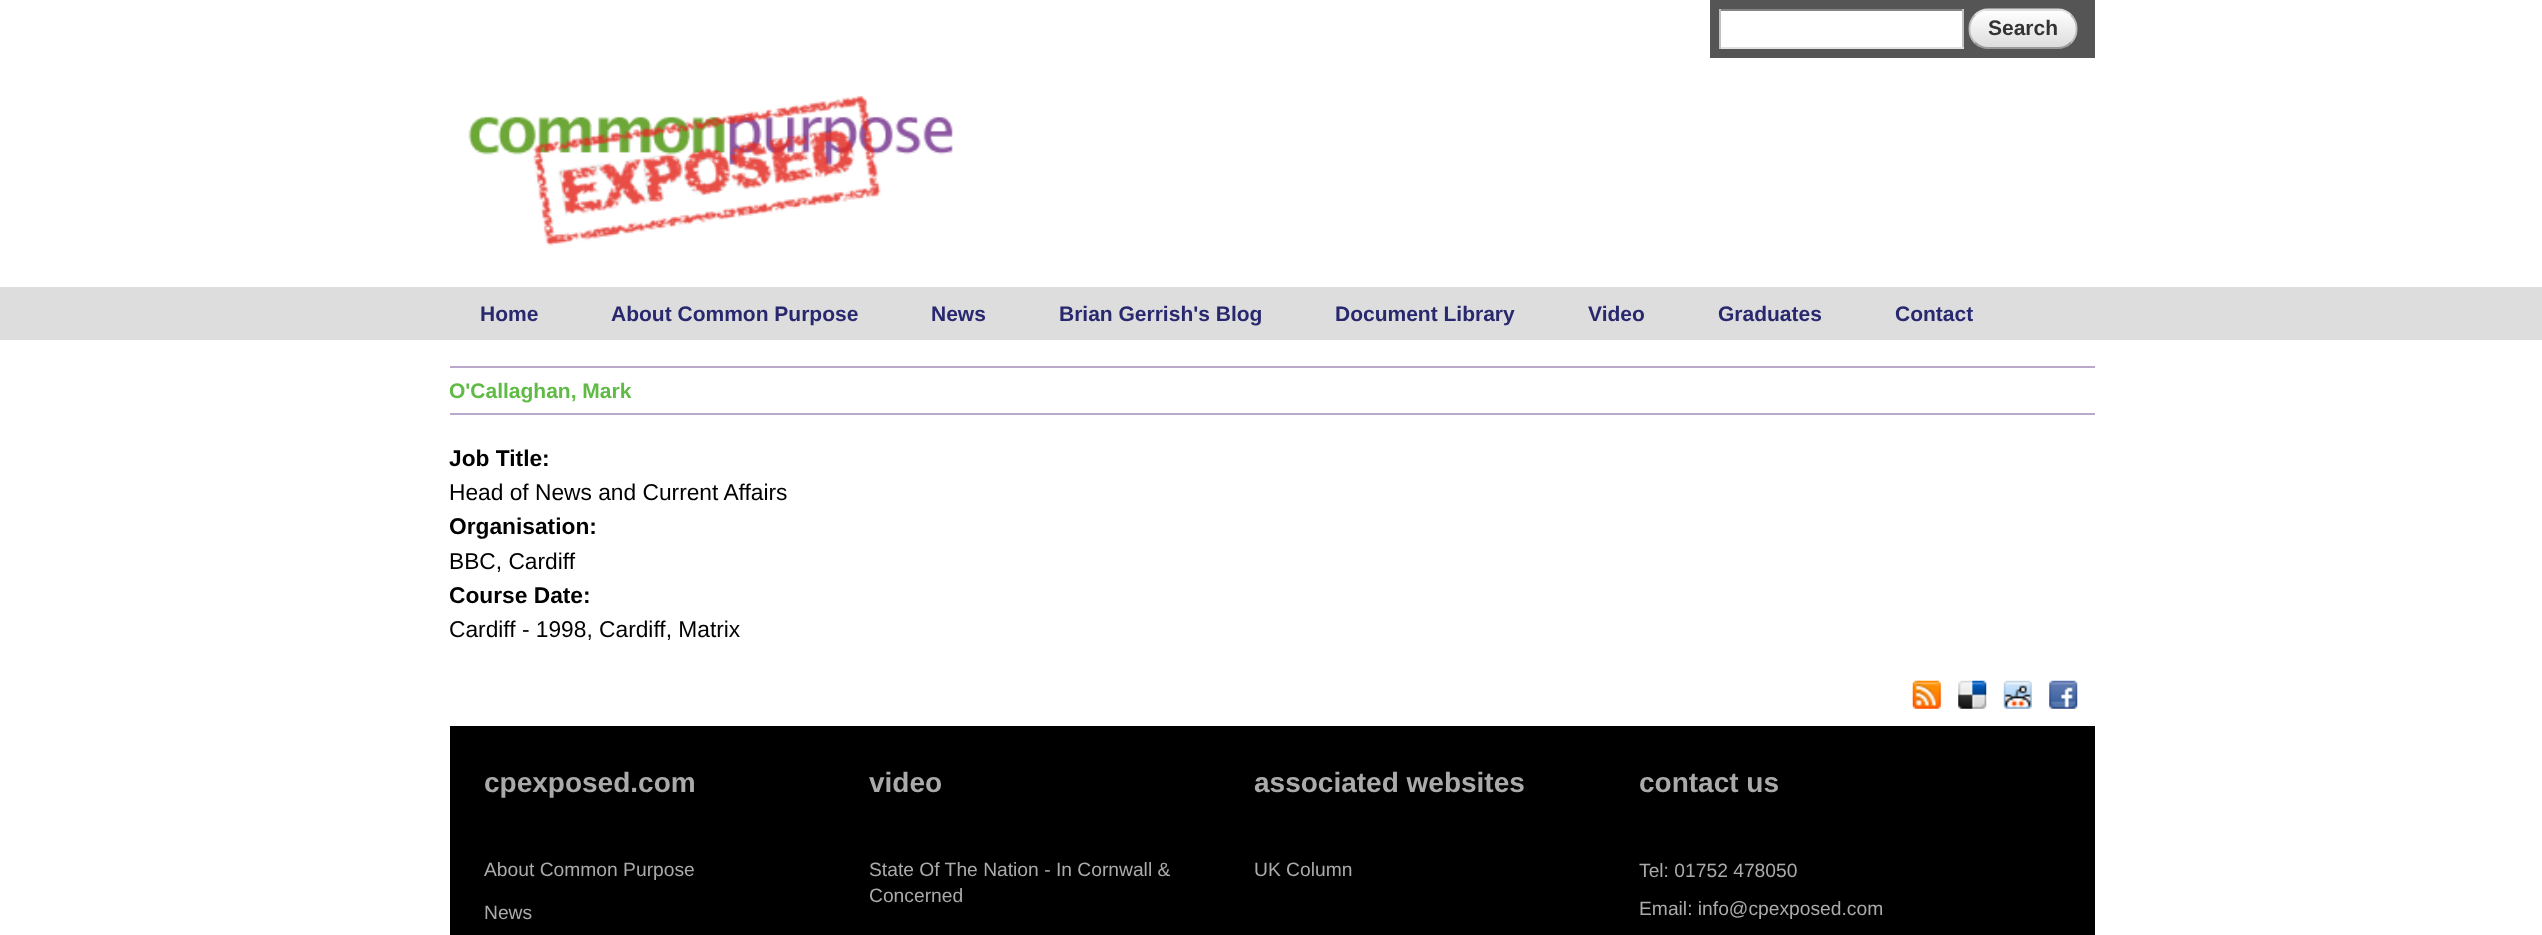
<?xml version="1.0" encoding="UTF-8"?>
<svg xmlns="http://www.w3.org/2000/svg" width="2542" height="935">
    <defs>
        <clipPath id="clip1"><rect x="1969" y="9" width="108" height="40" rx="19"/></clipPath>
        <linearGradient id="g1" gradientUnits="userSpaceOnUse" x1="1971" y1="-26" x2="1971" y2="11"><stop offset="0" stop-color="#FFFFFF"/><stop offset="1" stop-color="#DDDDDD"/></linearGradient>
        <linearGradient id="g2" gradientUnits="userSpaceOnUse" x1="1971" y1="11" x2="1971" y2="47"><stop offset="0" stop-color="#FFFFFF"/><stop offset="1" stop-color="#DDDDDD"/></linearGradient>
    </defs>
    <rect width="100%" height="100%" fill="#FFFFFF"/>
    <rect x="1710" y="0" width="385" height="58" fill="#555555"/>
    <rect x="1721" y="11" width="241" height="36" fill="#FFFFFF"/>
    <rect x="1719" y="9" width="245" height="2" fill="#848484"/>
    <rect x="1962" y="9" width="2" height="40" fill="#C1C1C1"/>
    <rect x="1719" y="47" width="245" height="2" fill="#E1E1E1"/>
    <rect x="1719" y="9" width="2" height="40" fill="#C1C1C1"/>
    <g clip-path="url(#clip1)">
        <rect x="1979" y="9" width="88" height="2" fill="url(#g1)"/>
        <rect x="1969" y="11" width="108" height="36" fill="url(#g2)"/>
    </g>
    <path d="M 1975 15 C 1978.5 11.5 1983 9.5 1988 9.5 H 2058 C 2063 9.5 2067.5 11.5 2071 15" fill="none" stroke="#DDDDDD" stroke-width="1.8"/>
    <path d="M 2071 15 C 2078.5 22.5 2078.5 35.5 2071 42.5" fill="none" stroke="#BBBBBB" stroke-width="1.8"/>
    <path d="M 2071 42.5 C 2067.5 46 2063 48 2058 48 H 1988 C 1983 48 1978.5 46 1975 42.5" fill="none" stroke="#999999" stroke-width="1.8"/>
    <path d="M 1975 42.5 C 1967.5 35.5 1967.5 22.5 1975 15" fill="none" stroke="#BBBBBB" stroke-width="1.8"/>
    <text x="1988" y="35" font-family="Liberation Sans" font-size="21" font-weight="700" fill="#333333">Search</text>
    <image x="468" y="95" width="485" height="151" href="img_01.png"/>
    <rect x="0" y="287" width="2542" height="53" fill="#DDDDDD"/>
    <text x="480" y="321" font-family="Liberation Sans" font-size="21" font-weight="700" fill="#28286E">Home</text>
    <text x="611" y="321" font-family="Liberation Sans" font-size="21" font-weight="700" fill="#28286E">About Common Purpose</text>
    <text x="931" y="321" font-family="Liberation Sans" font-size="21" font-weight="700" fill="#28286E">News</text>
    <text x="1059" y="321" font-family="Liberation Sans" font-size="21" font-weight="700" fill="#28286E">Brian Gerrish's Blog</text>
    <text x="1335" y="321" font-family="Liberation Sans" font-size="21" font-weight="700" fill="#28286E">Document Library</text>
    <text x="1588" y="321" font-family="Liberation Sans" font-size="21" font-weight="700" fill="#28286E">Video</text>
    <text x="1718" y="321" font-family="Liberation Sans" font-size="21" font-weight="700" fill="#28286E">Graduates</text>
    <text x="1895" y="321" font-family="Liberation Sans" font-size="21" font-weight="700" fill="#28286E">Contact</text>
    <rect x="450" y="366" width="1645" height="2" fill="#BAA9CB"/>
    <rect x="450" y="413" width="1645" height="2" fill="#BAA9CB"/>
    <text x="449" y="398" font-family="Liberation Sans" font-size="21" font-weight="700" fill="#60BB46">O'Callaghan, Mark</text>
    <text x="449" y="466" font-family="Liberation Sans" font-size="22.75" font-weight="700" fill="#000000">Job Title:</text>
    <text x="449" y="500" font-family="Liberation Sans" font-size="22.75" fill="#000000">Head of News and Current Affairs</text>
    <text x="449" y="534" font-family="Liberation Sans" font-size="22.75" font-weight="700" fill="#000000">Organisation:</text>
    <text x="449" y="569" font-family="Liberation Sans" font-size="22.75" fill="#000000">BBC, Cardiff</text>
    <text x="449" y="603" font-family="Liberation Sans" font-size="22.75" font-weight="700" fill="#000000">Course Date:</text>
    <text x="449" y="637" font-family="Liberation Sans" font-size="22.75" fill="#000000">Cardiff - 1998, Cardiff, Matrix</text>
    <image x="1912" y="680" width="29" height="29" href="img_02.png"/>
    <image x="1958" y="680" width="29" height="29" href="img_03.png"/>
    <image x="2003" y="680" width="29" height="29" href="img_04.png"/>
    <image x="2049" y="680" width="29" height="29" href="img_05.png"/>
    <rect x="450" y="726" width="1645" height="209" fill="#000000"/>
    <text x="484" y="792" font-family="Liberation Sans" font-size="28" font-weight="700" fill="#AAAAAA">cpexposed.com</text>
    <text x="484" y="876" font-family="Liberation Sans" font-size="19.25" fill="#AAAAAA">About Common Purpose</text>
    <text x="484" y="919" font-family="Liberation Sans" font-size="19.25" fill="#AAAAAA">News</text>
    <text x="869" y="792" font-family="Liberation Sans" font-size="28" font-weight="700" fill="#AAAAAA">video</text>
    <text font-family="Liberation Sans" font-size="19.25" fill="#AAAAAA">
        <tspan x="869" y="876">State Of The Nation - In Cornwall &amp;</tspan>
        <tspan x="869" y="902">Concerned</tspan>
    </text>
    <text x="1254" y="792" font-family="Liberation Sans" font-size="28" font-weight="700" fill="#AAAAAA">associated websites</text>
    <text x="1254" y="876" font-family="Liberation Sans" font-size="19.25" fill="#AAAAAA">UK Column</text>
    <text x="1639" y="792" font-family="Liberation Sans" font-size="28" font-weight="700" fill="#AAAAAA">contact us</text>
    <text font-family="Liberation Sans" font-size="19.25" fill="#AAAAAA">
        <tspan x="1639" y="877">Tel: 01752 478050</tspan>
        <tspan x="1639" y="915">Email: info@cpexposed.com</tspan>
    </text>
</svg>
